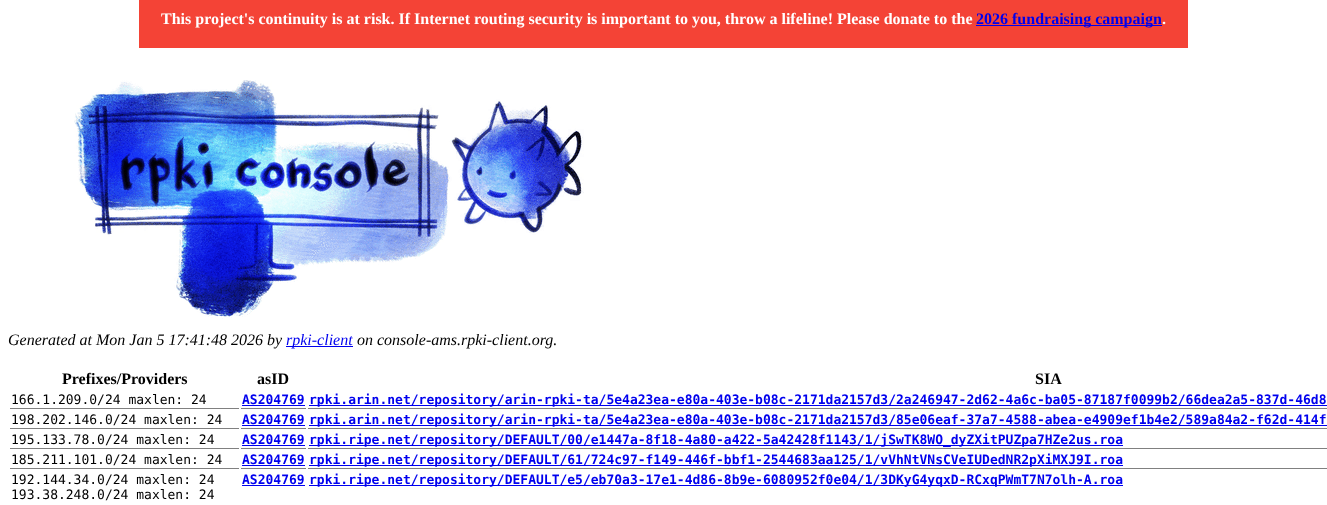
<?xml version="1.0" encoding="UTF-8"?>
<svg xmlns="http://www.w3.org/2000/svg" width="1327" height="505">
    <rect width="100%" height="100%" fill="#FFFFFF"/>
    <rect x="139" y="0" width="1049" height="48" fill="#F44336"/>
    <text x="161" y="24" font-family="Liberation Serif" font-size="16" font-weight="700" fill="#FFFFFF">This project's continuity is at risk. If Internet routing security is important to you, throw a lifeline! Please donate to the</text>
    <rect x="976" y="25" width="186" height="1" fill="#0000EE"/>
    <text x="976" y="24" font-family="Liberation Serif" font-size="16" font-weight="700" fill="#0000EE">2026 fundraising campaign</text>
    <text x="1162" y="24" font-family="Liberation Serif" font-size="16" font-weight="700" fill="#FFFFFF">.</text>
    <image x="74" y="80" width="510" height="239" href="img_01.png"/>
    <text x="8" y="345" font-family="Liberation Serif" font-size="16" font-style="italic" fill="#000000">Generated at Mon Jan 5 17:41:48 2026 by</text>
    <rect x="286" y="346" width="67" height="1" fill="#0000EE"/>
    <text x="286" y="345" font-family="Liberation Serif" font-size="16" font-style="italic" fill="#0000EE">rpki-client</text>
    <text x="357" y="345" font-family="Liberation Serif" font-size="16" font-style="italic" fill="#000000">on console-ams.rpki-client.org.</text>
    <text x="62" y="384" font-family="Liberation Serif" font-size="16" font-weight="700" fill="#000000">Prefixes/Providers</text>
    <text x="257" y="384" font-family="Liberation Serif" font-size="16" font-weight="700" fill="#000000">asID</text>
    <text x="1035" y="384" font-family="Liberation Serif" font-size="16" font-weight="700" fill="#000000">SIA</text>
    <rect x="10" y="408" width="229" height="1" fill="#808080"/>
    <text x="11" y="404" font-family="DejaVu Sans Mono" font-size="13" fill="#000000">166.1.209.0/24 maxlen: 24</text>
    <rect x="241" y="408" width="65" height="1" fill="#808080"/>
    <text x="242" y="404" font-family="DejaVu Sans Mono" font-size="13" font-weight="700" fill="#0000EE">AS204769</text>
    <rect x="242" y="405" width="63" height="1" fill="#0000EE"/>
    <rect x="308" y="408" width="1019" height="1" fill="#808080"/>
    <rect x="309" y="405" width="1018" height="1" fill="#0000EE"/>
    <text x="309" y="404" font-family="DejaVu Sans Mono" font-size="13" font-weight="700" fill="#0000EE">rpki.arin.net/repository/arin-rpki-ta/5e4a23ea-e80a-403e-b08c-2171da2157d3/2a246947-2d62-4a6c-ba05-87187f0099b2/66dea2a5-837d-46d8</text>
    <rect x="10" y="428" width="229" height="1" fill="#808080"/>
    <text x="11" y="424" font-family="DejaVu Sans Mono" font-size="13" fill="#000000">198.202.146.0/24 maxlen: 24</text>
    <rect x="241" y="428" width="65" height="1" fill="#808080"/>
    <text x="242" y="424" font-family="DejaVu Sans Mono" font-size="13" font-weight="700" fill="#0000EE">AS204769</text>
    <rect x="242" y="425" width="63" height="1" fill="#0000EE"/>
    <rect x="308" y="428" width="1019" height="1" fill="#808080"/>
    <rect x="309" y="425" width="1018" height="1" fill="#0000EE"/>
    <text x="309" y="424" font-family="DejaVu Sans Mono" font-size="13" font-weight="700" fill="#0000EE">rpki.arin.net/repository/arin-rpki-ta/5e4a23ea-e80a-403e-b08c-2171da2157d3/85e06eaf-37a7-4588-abea-e4909ef1b4e2/589a84a2-f62d-414f</text>
    <rect x="10" y="448" width="229" height="1" fill="#808080"/>
    <text x="11" y="444" font-family="DejaVu Sans Mono" font-size="13" fill="#000000">195.133.78.0/24 maxlen: 24</text>
    <rect x="241" y="448" width="65" height="1" fill="#808080"/>
    <text x="242" y="444" font-family="DejaVu Sans Mono" font-size="13" font-weight="700" fill="#0000EE">AS204769</text>
    <rect x="242" y="445" width="63" height="1" fill="#0000EE"/>
    <rect x="308" y="448" width="1019" height="1" fill="#808080"/>
    <rect x="309" y="445" width="814" height="1" fill="#0000EE"/>
    <text x="309" y="444" font-family="DejaVu Sans Mono" font-size="13" font-weight="700" fill="#0000EE">rpki.ripe.net/repository/DEFAULT/00/e1447a-8f18-4a80-a422-5a42428f1143/1/jSwTK8WO_dyZXitPUZpa7HZe2us.roa</text>
    <rect x="10" y="468" width="229" height="1" fill="#808080"/>
    <text x="11" y="464" font-family="DejaVu Sans Mono" font-size="13" fill="#000000">185.211.101.0/24 maxlen: 24</text>
    <rect x="241" y="468" width="65" height="1" fill="#808080"/>
    <text x="242" y="464" font-family="DejaVu Sans Mono" font-size="13" font-weight="700" fill="#0000EE">AS204769</text>
    <rect x="242" y="465" width="63" height="1" fill="#0000EE"/>
    <rect x="308" y="468" width="1019" height="1" fill="#808080"/>
    <rect x="309" y="465" width="814" height="1" fill="#0000EE"/>
    <text x="309" y="464" font-family="DejaVu Sans Mono" font-size="13" font-weight="700" fill="#0000EE">rpki.ripe.net/repository/DEFAULT/61/724c97-f149-446f-bbf1-2544683aa125/1/vVhNtVNsCVeIUDedNR2pXiMXJ9I.roa</text>
    <text font-family="DejaVu Sans Mono" font-size="13" fill="#000000">
        <tspan x="11" y="484">192.144.34.0/24 maxlen: 24</tspan>
        <tspan x="11" y="499">193.38.248.0/24 maxlen: 24</tspan>
    </text>
    <text x="242" y="484" font-family="DejaVu Sans Mono" font-size="13" font-weight="700" fill="#0000EE">AS204769</text>
    <rect x="242" y="485" width="63" height="1" fill="#0000EE"/>
    <rect x="309" y="485" width="814" height="1" fill="#0000EE"/>
    <text x="309" y="484" font-family="DejaVu Sans Mono" font-size="13" font-weight="700" fill="#0000EE">rpki.ripe.net/repository/DEFAULT/e5/eb70a3-17e1-4d86-8b9e-6080952f0e04/1/3DKyG4yqxD-RCxqPWmT7N7olh-A.roa</text>
</svg>
